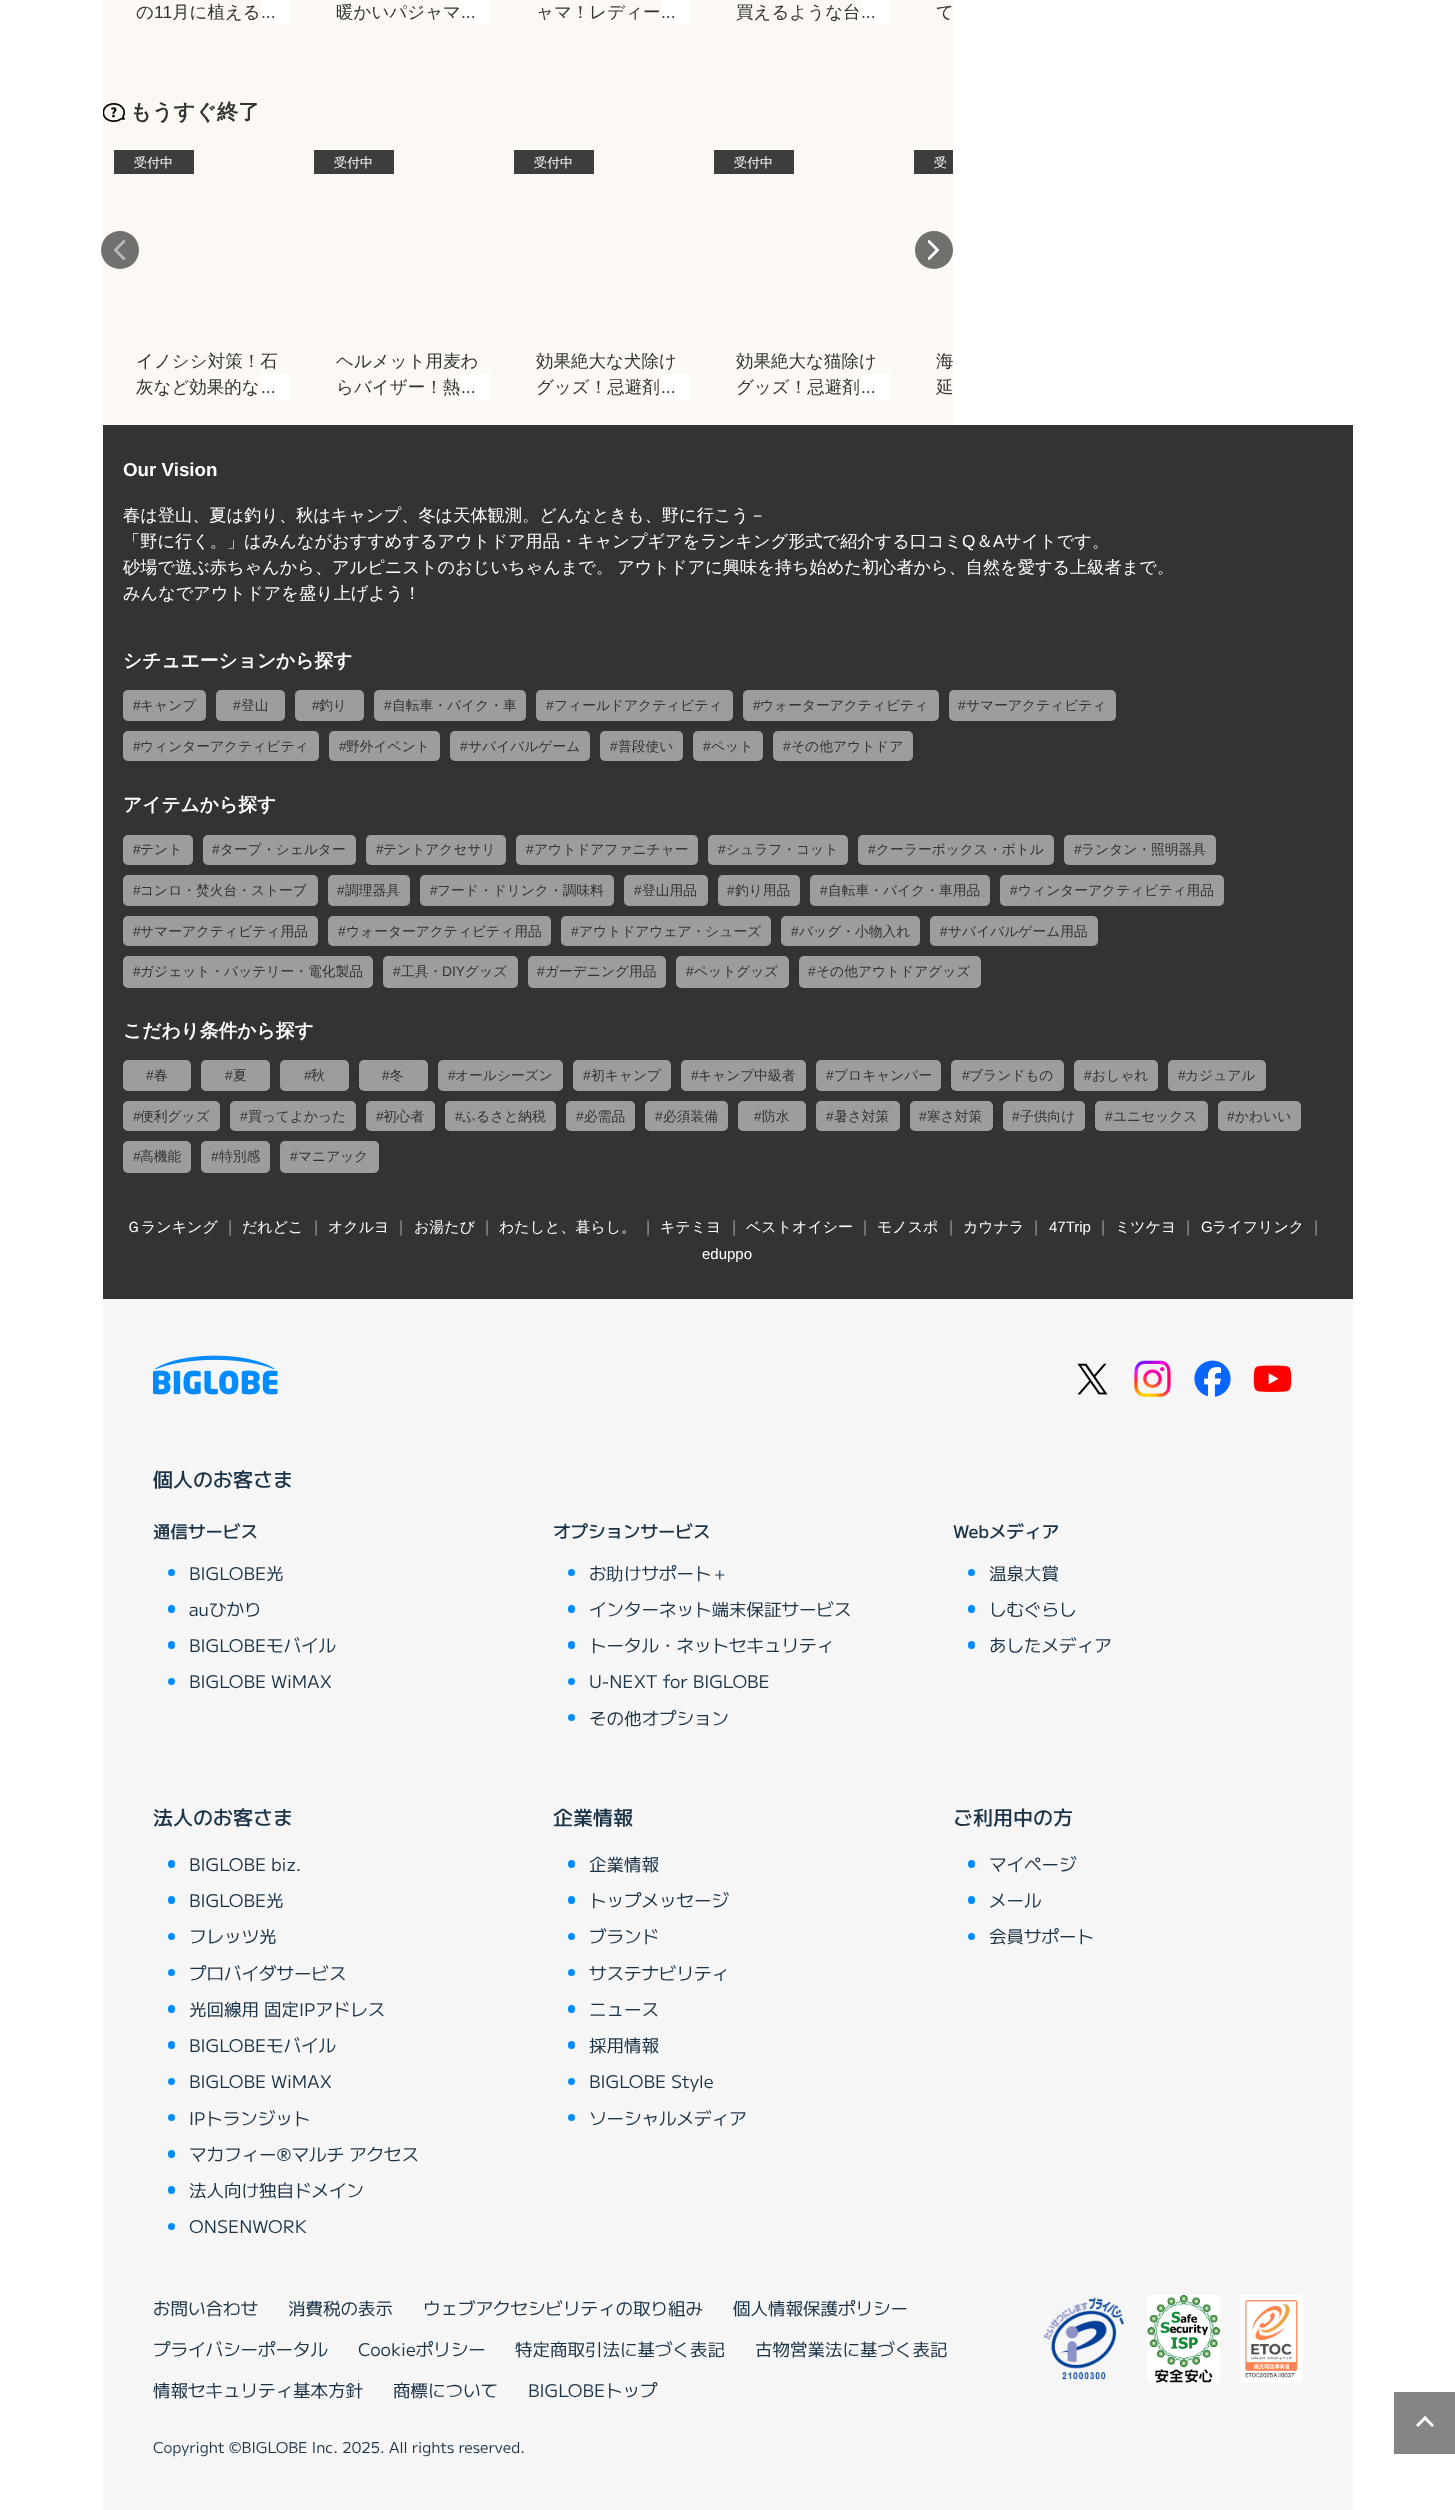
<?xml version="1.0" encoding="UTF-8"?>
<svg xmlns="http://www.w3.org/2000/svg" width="1455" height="2510">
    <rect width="100%" height="100%" fill="#FFFFFF"/>
    <rect x="103" y="0" width="850" height="425" fill="#FCF8F3"/>
    <text x="136" y="18" font-family="WenQuanYi Zen Hei" font-size="17.5" font-weight="500" fill="#333333">の</text>
    <text x="154" y="18" font-family="Liberation Sans" font-size="17.5" fill="#333333">11</text>
    <text x="172" y="18" font-family="WenQuanYi Zen Hei" font-size="17.5" font-weight="500" fill="#333333">月に植える</text>
    <rect x="261" y="0" width="30" height="25" fill="#FFFFFF"/>
    <text x="261" y="18" font-family="Liberation Sans" font-size="17.5" fill="#333333">...</text>
    <text x="336" y="18" font-family="WenQuanYi Zen Hei" font-size="17.5" font-weight="500" fill="#333333">暖かいパジャマ</text>
    <rect x="461" y="0" width="30" height="25" fill="#FFFFFF"/>
    <text x="461" y="18" font-family="Liberation Sans" font-size="17.5" fill="#333333">...</text>
    <text x="536" y="18" font-family="WenQuanYi Zen Hei" font-size="17.5" font-weight="500" fill="#333333">ャマ！レディー</text>
    <rect x="661" y="0" width="30" height="25" fill="#FFFFFF"/>
    <text x="661" y="18" font-family="Liberation Sans" font-size="17.5" fill="#333333">...</text>
    <text x="736" y="18" font-family="WenQuanYi Zen Hei" font-size="17.5" font-weight="500" fill="#333333">買えるような台</text>
    <rect x="861" y="0" width="30" height="25" fill="#FFFFFF"/>
    <text x="861" y="18" font-family="Liberation Sans" font-size="17.5" fill="#333333">...</text>
    <text x="936" y="18" font-family="WenQuanYi Zen Hei" font-size="17.5" font-weight="500" fill="#333333">て</text>
    <image x="103" y="103" width="22" height="19" href="img_01.png"/>
    <text x="130" y="119" font-family="WenQuanYi Zen Hei" font-size="21.25" font-weight="700" fill="#333333">もうすぐ終了</text>
    <circle cx="120" cy="250" r="19" fill="#000000" fill-opacity="0.55"/>
    <image x="114" y="240" width="12" height="20" href="img_02.png"/>
    <rect x="114" y="150" width="80" height="24" fill="#3D3D3D"/>
    <text x="134" y="167" font-family="WenQuanYi Zen Hei" font-size="13" font-weight="500" fill="#FFFFFF">受付中</text>
    <text font-family="WenQuanYi Zen Hei" font-size="17.5" font-weight="500" fill="#333333">
        <tspan x="136" y="367">イノシシ対策！石</tspan>
        <tspan x="136" y="393">灰など効果的な</tspan>
    </text>
    <rect x="261" y="374" width="30" height="26" fill="#FFFFFF"/>
    <text x="261" y="393" font-family="Liberation Sans" font-size="17.5" fill="#333333">...</text>
    <rect x="314" y="150" width="80" height="24" fill="#3D3D3D"/>
    <text x="334" y="167" font-family="WenQuanYi Zen Hei" font-size="13" font-weight="500" fill="#FFFFFF">受付中</text>
    <text font-family="WenQuanYi Zen Hei" font-size="17.5" font-weight="500" fill="#333333">
        <tspan x="336" y="367">ヘルメット用麦わ</tspan>
        <tspan x="336" y="393">らバイザー！熱</tspan>
    </text>
    <rect x="461" y="374" width="30" height="26" fill="#FFFFFF"/>
    <text x="461" y="393" font-family="Liberation Sans" font-size="17.5" fill="#333333">...</text>
    <rect x="514" y="150" width="80" height="24" fill="#3D3D3D"/>
    <text x="534" y="167" font-family="WenQuanYi Zen Hei" font-size="13" font-weight="500" fill="#FFFFFF">受付中</text>
    <text font-family="WenQuanYi Zen Hei" font-size="17.5" font-weight="500" fill="#333333">
        <tspan x="536" y="367">効果絶大な犬除け</tspan>
        <tspan x="536" y="393">グッズ！忌避剤</tspan>
    </text>
    <rect x="661" y="374" width="30" height="26" fill="#FFFFFF"/>
    <text x="661" y="393" font-family="Liberation Sans" font-size="17.5" fill="#333333">...</text>
    <rect x="714" y="150" width="80" height="24" fill="#3D3D3D"/>
    <text x="734" y="167" font-family="WenQuanYi Zen Hei" font-size="13" font-weight="500" fill="#FFFFFF">受付中</text>
    <text font-family="WenQuanYi Zen Hei" font-size="17.5" font-weight="500" fill="#333333">
        <tspan x="736" y="367">効果絶大な猫除け</tspan>
        <tspan x="736" y="393">グッズ！忌避剤</tspan>
    </text>
    <rect x="861" y="374" width="30" height="26" fill="#FFFFFF"/>
    <text x="861" y="393" font-family="Liberation Sans" font-size="17.5" fill="#333333">...</text>
    <rect x="914" y="150" width="39" height="24" fill="#3D3D3D"/>
    <text x="934" y="167" font-family="WenQuanYi Zen Hei" font-size="13" font-weight="500" fill="#FFFFFF">受</text>
    <text font-family="WenQuanYi Zen Hei" font-size="17.5" font-weight="500" fill="#333333">
        <tspan x="936" y="367">海</tspan>
        <tspan x="936" y="393">延</tspan>
    </text>
    <circle cx="934" cy="250" r="19" fill="#71706D"/>
    <image x="928" y="240" width="11" height="20" href="img_03.png"/>
    <rect x="103" y="425" width="1250" height="874" fill="#333333"/>
    <text x="123" y="476" font-family="Liberation Sans" font-size="18.75" font-weight="700" fill="#FFFFFF">Our Vision</text>
    <text font-family="WenQuanYi Zen Hei" font-size="17.2" font-weight="500" fill="#FFFFFF">
        <tspan x="123" y="521">春は登山、夏は釣り、秋はキャンプ、冬は天体観測。どんなときも、野に行こう－</tspan>
        <tspan x="123" y="547">「野に行く。」はみんながおすすめするアウトドア用品・キャンプギアをランキング形式で紹介する口コミ</tspan>
    </text>
    <text x="962" y="547" font-family="Liberation Sans" font-size="17.2" fill="#FFFFFF">Q</text>
    <text x="976" y="547" font-family="WenQuanYi Zen Hei" font-size="17.2" font-weight="500" fill="#FFFFFF">＆</text>
    <text x="993" y="547" font-family="Liberation Sans" font-size="17.2" fill="#FFFFFF">A</text>
    <text x="1004" y="547" font-family="WenQuanYi Zen Hei" font-size="17.2" font-weight="500" fill="#FFFFFF">サイトです。</text>
    <text font-family="WenQuanYi Zen Hei" font-size="17.2" font-weight="500" fill="#FFFFFF">
        <tspan x="123" y="573" word-spacing="-1">砂場で遊ぶ赤ちゃんから、アルピニストのおじいちゃんまで。 アウトドアに興味を持ち始めた初心者から、自然を愛する上級者まで。</tspan>
        <tspan x="123" y="599">みんなでアウトドアを盛り上げよう！</tspan>
    </text>
    <text x="123" y="667" font-family="WenQuanYi Zen Hei" font-size="18.75" font-weight="700" fill="#FFFFFF">シチュエーションから探す</text>
    <rect x="123" y="690" width="83" height="31" rx="5" fill="#9D9D9D"/>
    <text x="133" y="710" font-family="Liberation Sans" font-size="13.75" fill="#333333">#</text>
    <text x="140" y="710" font-family="WenQuanYi Zen Hei" font-size="13.75" font-weight="500" fill="#333333">キャンプ</text>
    <rect x="216" y="690" width="69" height="31" rx="5" fill="#9D9D9D"/>
    <text x="233" y="710" font-family="Liberation Sans" font-size="13.75" fill="#333333">#</text>
    <text x="241" y="710" font-family="WenQuanYi Zen Hei" font-size="13.75" font-weight="500" fill="#333333">登山</text>
    <rect x="295" y="690" width="69" height="31" rx="5" fill="#9D9D9D"/>
    <text x="312" y="710" font-family="Liberation Sans" font-size="13.75" fill="#333333">#</text>
    <text x="319" y="710" font-family="WenQuanYi Zen Hei" font-size="13.75" font-weight="500" fill="#333333">釣り</text>
    <rect x="374" y="690" width="152" height="31" rx="5" fill="#9D9D9D"/>
    <text x="384" y="710" font-family="Liberation Sans" font-size="13.75" fill="#333333">#</text>
    <text x="392" y="710" font-family="WenQuanYi Zen Hei" font-size="13.75" font-weight="500" fill="#333333">自転車・バイク・車</text>
    <rect x="536" y="690" width="197" height="31" rx="5" fill="#9D9D9D"/>
    <text x="546" y="710" font-family="Liberation Sans" font-size="13.75" fill="#333333">#</text>
    <text x="554" y="710" font-family="WenQuanYi Zen Hei" font-size="13.75" font-weight="500" fill="#333333">フィールドアクティビティ</text>
    <rect x="743" y="690" width="196" height="31" rx="5" fill="#9D9D9D"/>
    <text x="753" y="710" font-family="Liberation Sans" font-size="13.75" fill="#333333">#</text>
    <text x="760" y="710" font-family="WenQuanYi Zen Hei" font-size="13.75" font-weight="500" fill="#333333">ウォーターアクティビティ</text>
    <rect x="949" y="690" width="167" height="31" rx="5" fill="#9D9D9D"/>
    <text x="958" y="710" font-family="Liberation Sans" font-size="13.75" fill="#333333">#</text>
    <text x="966" y="710" font-family="WenQuanYi Zen Hei" font-size="13.75" font-weight="500" fill="#333333">サマーアクティビティ</text>
    <rect x="123" y="731" width="196" height="30" rx="5" fill="#9D9D9D"/>
    <text x="133" y="751" font-family="Liberation Sans" font-size="13.75" fill="#333333">#</text>
    <text x="140" y="751" font-family="WenQuanYi Zen Hei" font-size="13.75" font-weight="500" fill="#333333">ウィンターアクティビティ</text>
    <rect x="329" y="731" width="111" height="30" rx="5" fill="#9D9D9D"/>
    <text x="339" y="751" font-family="Liberation Sans" font-size="13.75" fill="#333333">#</text>
    <text x="346" y="751" font-family="WenQuanYi Zen Hei" font-size="13.75" font-weight="500" fill="#333333">野外イベント</text>
    <rect x="450" y="731" width="140" height="30" rx="5" fill="#9D9D9D"/>
    <text x="460" y="751" font-family="Liberation Sans" font-size="13.75" fill="#333333">#</text>
    <text x="468" y="751" font-family="WenQuanYi Zen Hei" font-size="13.75" font-weight="500" fill="#333333">サバイバルゲーム</text>
    <rect x="600" y="731" width="83" height="30" rx="5" fill="#9D9D9D"/>
    <text x="610" y="751" font-family="Liberation Sans" font-size="13.75" fill="#333333">#</text>
    <text x="618" y="751" font-family="WenQuanYi Zen Hei" font-size="13.75" font-weight="500" fill="#333333">普段使い</text>
    <rect x="693" y="731" width="70" height="30" rx="5" fill="#9D9D9D"/>
    <text x="703" y="751" font-family="Liberation Sans" font-size="13.75" fill="#333333">#</text>
    <text x="711" y="751" font-family="WenQuanYi Zen Hei" font-size="13.75" font-weight="500" fill="#333333">ペット</text>
    <rect x="773" y="731" width="140" height="30" rx="5" fill="#9D9D9D"/>
    <text x="783" y="751" font-family="Liberation Sans" font-size="13.75" fill="#333333">#</text>
    <text x="791" y="751" font-family="WenQuanYi Zen Hei" font-size="13.75" font-weight="500" fill="#333333">その他アウトドア</text>
    <text x="123" y="811" font-family="WenQuanYi Zen Hei" font-size="18.75" font-weight="700" fill="#FFFFFF">アイテムから探す</text>
    <rect x="123" y="835" width="70" height="30" rx="5" fill="#9D9D9D"/>
    <text x="133" y="854" font-family="Liberation Sans" font-size="13.75" fill="#333333">#</text>
    <text x="140" y="854" font-family="WenQuanYi Zen Hei" font-size="13.75" font-weight="500" fill="#333333">テント</text>
    <rect x="203" y="835" width="153" height="30" rx="5" fill="#9D9D9D"/>
    <text x="212" y="854" font-family="Liberation Sans" font-size="13.75" fill="#333333">#</text>
    <text x="220" y="854" font-family="WenQuanYi Zen Hei" font-size="13.75" font-weight="500" fill="#333333">タープ・シェルター</text>
    <rect x="366" y="835" width="140" height="30" rx="5" fill="#9D9D9D"/>
    <text x="376" y="854" font-family="Liberation Sans" font-size="13.75" fill="#333333">#</text>
    <text x="383" y="854" font-family="WenQuanYi Zen Hei" font-size="13.75" font-weight="500" fill="#333333">テントアクセサリ</text>
    <rect x="516" y="835" width="182" height="30" rx="5" fill="#9D9D9D"/>
    <text x="526" y="854" font-family="Liberation Sans" font-size="13.75" fill="#333333">#</text>
    <text x="534" y="854" font-family="WenQuanYi Zen Hei" font-size="13.75" font-weight="500" fill="#333333">アウトドアファニチャー</text>
    <rect x="708" y="835" width="140" height="30" rx="5" fill="#9D9D9D"/>
    <text x="718" y="854" font-family="Liberation Sans" font-size="13.75" fill="#333333">#</text>
    <text x="726" y="854" font-family="WenQuanYi Zen Hei" font-size="13.75" font-weight="500" fill="#333333">シュラフ・コット</text>
    <rect x="858" y="835" width="196" height="30" rx="5" fill="#9D9D9D"/>
    <text x="868" y="854" font-family="Liberation Sans" font-size="13.75" fill="#333333">#</text>
    <text x="876" y="854" font-family="WenQuanYi Zen Hei" font-size="13.75" font-weight="500" fill="#333333">クーラーボックス・ボトル</text>
    <rect x="1064" y="835" width="152" height="30" rx="5" fill="#9D9D9D"/>
    <text x="1074" y="854" font-family="Liberation Sans" font-size="13.75" fill="#333333">#</text>
    <text x="1081" y="854" font-family="WenQuanYi Zen Hei" font-size="13.75" font-weight="500" fill="#333333">ランタン・照明器具</text>
    <rect x="123" y="875" width="195" height="31" rx="5" fill="#9D9D9D"/>
    <text x="133" y="895" font-family="Liberation Sans" font-size="13.75" fill="#333333">#</text>
    <text x="140" y="895" font-family="WenQuanYi Zen Hei" font-size="13.75" font-weight="500" fill="#333333">コンロ・焚火台・ストーブ</text>
    <rect x="328" y="875" width="82" height="31" rx="5" fill="#9D9D9D"/>
    <text x="337" y="895" font-family="Liberation Sans" font-size="13.75" fill="#333333">#</text>
    <text x="345" y="895" font-family="WenQuanYi Zen Hei" font-size="13.75" font-weight="500" fill="#333333">調理器具</text>
    <rect x="420" y="875" width="194" height="31" rx="5" fill="#9D9D9D"/>
    <text x="430" y="895" font-family="Liberation Sans" font-size="13.75" fill="#333333">#</text>
    <text x="437" y="895" font-family="WenQuanYi Zen Hei" font-size="13.75" font-weight="500" fill="#333333">フード・ドリンク・調味料</text>
    <rect x="624" y="875" width="84" height="31" rx="5" fill="#9D9D9D"/>
    <text x="634" y="895" font-family="Liberation Sans" font-size="13.75" fill="#333333">#</text>
    <text x="642" y="895" font-family="WenQuanYi Zen Hei" font-size="13.75" font-weight="500" fill="#333333">登山用品</text>
    <rect x="718" y="875" width="82" height="31" rx="5" fill="#9D9D9D"/>
    <text x="727" y="895" font-family="Liberation Sans" font-size="13.75" fill="#333333">#</text>
    <text x="735" y="895" font-family="WenQuanYi Zen Hei" font-size="13.75" font-weight="500" fill="#333333">釣り用品</text>
    <rect x="810" y="875" width="180" height="31" rx="5" fill="#9D9D9D"/>
    <text x="820" y="895" font-family="Liberation Sans" font-size="13.75" fill="#333333">#</text>
    <text x="828" y="895" font-family="WenQuanYi Zen Hei" font-size="13.75" font-weight="500" fill="#333333">自転車・バイク・車用品</text>
    <rect x="1000" y="875" width="224" height="31" rx="5" fill="#9D9D9D"/>
    <text x="1010" y="895" font-family="Liberation Sans" font-size="13.75" fill="#333333">#</text>
    <text x="1018" y="895" font-family="WenQuanYi Zen Hei" font-size="13.75" font-weight="500" fill="#333333">ウィンターアクティビティ用品</text>
    <rect x="123" y="916" width="195" height="30" rx="5" fill="#9D9D9D"/>
    <text x="133" y="936" font-family="Liberation Sans" font-size="13.75" fill="#333333">#</text>
    <text x="140" y="936" font-family="WenQuanYi Zen Hei" font-size="13.75" font-weight="500" fill="#333333">サマーアクティビティ用品</text>
    <rect x="328" y="916" width="223" height="30" rx="5" fill="#9D9D9D"/>
    <text x="338" y="936" font-family="Liberation Sans" font-size="13.75" fill="#333333">#</text>
    <text x="346" y="936" font-family="WenQuanYi Zen Hei" font-size="13.75" font-weight="500" fill="#333333">ウォーターアクティビティ用品</text>
    <rect x="561" y="916" width="210" height="30" rx="5" fill="#9D9D9D"/>
    <text x="571" y="936" font-family="Liberation Sans" font-size="13.75" fill="#333333">#</text>
    <text x="579" y="936" font-family="WenQuanYi Zen Hei" font-size="13.75" font-weight="500" fill="#333333">アウトドアウェア・シューズ</text>
    <rect x="781" y="916" width="139" height="30" rx="5" fill="#9D9D9D"/>
    <text x="791" y="936" font-family="Liberation Sans" font-size="13.75" fill="#333333">#</text>
    <text x="799" y="936" font-family="WenQuanYi Zen Hei" font-size="13.75" font-weight="500" fill="#333333">バッグ・小物入れ</text>
    <rect x="930" y="916" width="168" height="30" rx="5" fill="#9D9D9D"/>
    <text x="940" y="936" font-family="Liberation Sans" font-size="13.75" fill="#333333">#</text>
    <text x="948" y="936" font-family="WenQuanYi Zen Hei" font-size="13.75" font-weight="500" fill="#333333">サバイバルゲーム用品</text>
    <rect x="123" y="956" width="250" height="32" rx="5" fill="#9D9D9D"/>
    <text x="133" y="976" font-family="Liberation Sans" font-size="13.75" fill="#333333">#</text>
    <text x="140" y="976" font-family="WenQuanYi Zen Hei" font-size="13.75" font-weight="500" fill="#333333">ガジェット・バッテリー・電化製品</text>
    <rect x="383" y="956" width="135" height="32" rx="5" fill="#9D9D9D"/>
    <text x="393" y="976" font-family="Liberation Sans" font-size="13.75" fill="#333333">#</text>
    <text x="401" y="976" font-family="WenQuanYi Zen Hei" font-size="13.75" font-weight="500" fill="#333333">工具・</text>
    <text x="442" y="976" font-family="Liberation Sans" font-size="13.75" fill="#333333">DIY</text>
    <text x="465" y="976" font-family="WenQuanYi Zen Hei" font-size="13.75" font-weight="500" fill="#333333">グッズ</text>
    <rect x="528" y="956" width="138" height="32" rx="5" fill="#9D9D9D"/>
    <text x="537" y="976" font-family="Liberation Sans" font-size="13.75" fill="#333333">#</text>
    <text x="545" y="976" font-family="WenQuanYi Zen Hei" font-size="13.75" font-weight="500" fill="#333333">ガーデニング用品</text>
    <rect x="676" y="956" width="113" height="32" rx="5" fill="#9D9D9D"/>
    <text x="686" y="976" font-family="Liberation Sans" font-size="13.75" fill="#333333">#</text>
    <text x="694" y="976" font-family="WenQuanYi Zen Hei" font-size="13.75" font-weight="500" fill="#333333">ペットグッズ</text>
    <rect x="799" y="956" width="182" height="32" rx="5" fill="#9D9D9D"/>
    <text x="808" y="976" font-family="Liberation Sans" font-size="13.75" fill="#333333">#</text>
    <text x="816" y="976" font-family="WenQuanYi Zen Hei" font-size="13.75" font-weight="500" fill="#333333">その他アウトドアグッズ</text>
    <text x="123" y="1037" font-family="WenQuanYi Zen Hei" font-size="18.75" font-weight="700" fill="#FFFFFF">こだわり条件から探す</text>
    <rect x="123" y="1060" width="68" height="31" rx="5" fill="#9D9D9D"/>
    <text x="146" y="1080" font-family="Liberation Sans" font-size="13.75" fill="#333333">#</text>
    <text x="154" y="1080" font-family="WenQuanYi Zen Hei" font-size="13.75" font-weight="500" fill="#333333">春</text>
    <rect x="201" y="1060" width="69" height="31" rx="5" fill="#9D9D9D"/>
    <text x="225" y="1080" font-family="Liberation Sans" font-size="13.75" fill="#333333">#</text>
    <text x="233" y="1080" font-family="WenQuanYi Zen Hei" font-size="13.75" font-weight="500" fill="#333333">夏</text>
    <rect x="280" y="1060" width="69" height="31" rx="5" fill="#9D9D9D"/>
    <text x="304" y="1080" font-family="Liberation Sans" font-size="13.75" fill="#333333">#</text>
    <text x="311" y="1080" font-family="WenQuanYi Zen Hei" font-size="13.75" font-weight="500" fill="#333333">秋</text>
    <rect x="359" y="1060" width="69" height="31" rx="5" fill="#9D9D9D"/>
    <text x="382" y="1080" font-family="Liberation Sans" font-size="13.75" fill="#333333">#</text>
    <text x="390" y="1080" font-family="WenQuanYi Zen Hei" font-size="13.75" font-weight="500" fill="#333333">冬</text>
    <rect x="438" y="1060" width="125" height="31" rx="5" fill="#9D9D9D"/>
    <text x="448" y="1080" font-family="Liberation Sans" font-size="13.75" fill="#333333">#</text>
    <text x="455" y="1080" font-family="WenQuanYi Zen Hei" font-size="13.75" font-weight="500" fill="#333333">オールシーズン</text>
    <rect x="573" y="1060" width="98" height="31" rx="5" fill="#9D9D9D"/>
    <text x="583" y="1080" font-family="Liberation Sans" font-size="13.75" fill="#333333">#</text>
    <text x="591" y="1080" font-family="WenQuanYi Zen Hei" font-size="13.75" font-weight="500" fill="#333333">初キャンプ</text>
    <rect x="681" y="1060" width="125" height="31" rx="5" fill="#9D9D9D"/>
    <text x="691" y="1080" font-family="Liberation Sans" font-size="13.75" fill="#333333">#</text>
    <text x="698" y="1080" font-family="WenQuanYi Zen Hei" font-size="13.75" font-weight="500" fill="#333333">キャンプ中級者</text>
    <rect x="816" y="1060" width="125" height="31" rx="5" fill="#9D9D9D"/>
    <text x="826" y="1080" font-family="Liberation Sans" font-size="13.75" fill="#333333">#</text>
    <text x="834" y="1080" font-family="WenQuanYi Zen Hei" font-size="13.75" font-weight="500" fill="#333333">プロキャンパー</text>
    <rect x="951" y="1060" width="113" height="31" rx="5" fill="#9D9D9D"/>
    <text x="962" y="1080" font-family="Liberation Sans" font-size="13.75" fill="#333333">#</text>
    <text x="969" y="1080" font-family="WenQuanYi Zen Hei" font-size="13.75" font-weight="500" fill="#333333">ブランドもの</text>
    <rect x="1074" y="1060" width="84" height="31" rx="5" fill="#9D9D9D"/>
    <text x="1084" y="1080" font-family="Liberation Sans" font-size="13.75" fill="#333333">#</text>
    <text x="1092" y="1080" font-family="WenQuanYi Zen Hei" font-size="13.75" font-weight="500" fill="#333333">おしゃれ</text>
    <rect x="1168" y="1060" width="98" height="31" rx="5" fill="#9D9D9D"/>
    <text x="1178" y="1080" font-family="Liberation Sans" font-size="13.75" fill="#333333">#</text>
    <text x="1185" y="1080" font-family="WenQuanYi Zen Hei" font-size="13.75" font-weight="500" fill="#333333">カジュアル</text>
    <rect x="123" y="1101" width="97" height="30" rx="5" fill="#9D9D9D"/>
    <text x="133" y="1121" font-family="Liberation Sans" font-size="13.75" fill="#333333">#</text>
    <text x="140" y="1121" font-family="WenQuanYi Zen Hei" font-size="13.75" font-weight="500" fill="#333333">便利グッズ</text>
    <rect x="230" y="1101" width="126" height="30" rx="5" fill="#9D9D9D"/>
    <text x="240" y="1121" font-family="Liberation Sans" font-size="13.75" fill="#333333">#</text>
    <text x="248" y="1121" font-family="WenQuanYi Zen Hei" font-size="13.75" font-weight="500" fill="#333333">買ってよかった</text>
    <rect x="366" y="1101" width="69" height="30" rx="5" fill="#9D9D9D"/>
    <text x="376" y="1121" font-family="Liberation Sans" font-size="13.75" fill="#333333">#</text>
    <text x="383" y="1121" font-family="WenQuanYi Zen Hei" font-size="13.75" font-weight="500" fill="#333333">初心者</text>
    <rect x="445" y="1101" width="111" height="30" rx="5" fill="#9D9D9D"/>
    <text x="455" y="1121" font-family="Liberation Sans" font-size="13.75" fill="#333333">#</text>
    <text x="462" y="1121" font-family="WenQuanYi Zen Hei" font-size="13.75" font-weight="500" fill="#333333">ふるさと納税</text>
    <rect x="566" y="1101" width="69" height="30" rx="5" fill="#9D9D9D"/>
    <text x="576" y="1121" font-family="Liberation Sans" font-size="13.75" fill="#333333">#</text>
    <text x="584" y="1121" font-family="WenQuanYi Zen Hei" font-size="13.75" font-weight="500" fill="#333333">必需品</text>
    <rect x="645" y="1101" width="83" height="30" rx="5" fill="#9D9D9D"/>
    <text x="655" y="1121" font-family="Liberation Sans" font-size="13.75" fill="#333333">#</text>
    <text x="663" y="1121" font-family="WenQuanYi Zen Hei" font-size="13.75" font-weight="500" fill="#333333">必須装備</text>
    <rect x="738" y="1101" width="68" height="30" rx="5" fill="#9D9D9D"/>
    <text x="754" y="1121" font-family="Liberation Sans" font-size="13.75" fill="#333333">#</text>
    <text x="762" y="1121" font-family="WenQuanYi Zen Hei" font-size="13.75" font-weight="500" fill="#333333">防水</text>
    <rect x="816" y="1101" width="84" height="30" rx="5" fill="#9D9D9D"/>
    <text x="826" y="1121" font-family="Liberation Sans" font-size="13.75" fill="#333333">#</text>
    <text x="834" y="1121" font-family="WenQuanYi Zen Hei" font-size="13.75" font-weight="500" fill="#333333">暑さ対策</text>
    <rect x="910" y="1101" width="83" height="30" rx="5" fill="#9D9D9D"/>
    <text x="919" y="1121" font-family="Liberation Sans" font-size="13.75" fill="#333333">#</text>
    <text x="927" y="1121" font-family="WenQuanYi Zen Hei" font-size="13.75" font-weight="500" fill="#333333">寒さ対策</text>
    <rect x="1003" y="1101" width="82" height="30" rx="5" fill="#9D9D9D"/>
    <text x="1012" y="1121" font-family="Liberation Sans" font-size="13.75" fill="#333333">#</text>
    <text x="1020" y="1121" font-family="WenQuanYi Zen Hei" font-size="13.75" font-weight="500" fill="#333333">子供向け</text>
    <rect x="1095" y="1101" width="113" height="30" rx="5" fill="#9D9D9D"/>
    <text x="1105" y="1121" font-family="Liberation Sans" font-size="13.75" fill="#333333">#</text>
    <text x="1113" y="1121" font-family="WenQuanYi Zen Hei" font-size="13.75" font-weight="500" fill="#333333">ユニセックス</text>
    <rect x="1218" y="1101" width="83" height="30" rx="5" fill="#9D9D9D"/>
    <text x="1227" y="1121" font-family="Liberation Sans" font-size="13.75" fill="#333333">#</text>
    <text x="1235" y="1121" font-family="WenQuanYi Zen Hei" font-size="13.75" font-weight="500" fill="#333333">かわいい</text>
    <rect x="123" y="1141" width="68" height="32" rx="5" fill="#9D9D9D"/>
    <text x="133" y="1161" font-family="Liberation Sans" font-size="13.75" fill="#333333">#</text>
    <text x="140" y="1161" font-family="WenQuanYi Zen Hei" font-size="13.75" font-weight="500" fill="#333333">高機能</text>
    <rect x="201" y="1141" width="69" height="32" rx="5" fill="#9D9D9D"/>
    <text x="211" y="1161" font-family="Liberation Sans" font-size="13.75" fill="#333333">#</text>
    <text x="219" y="1161" font-family="WenQuanYi Zen Hei" font-size="13.75" font-weight="500" fill="#333333">特別感</text>
    <rect x="280" y="1141" width="99" height="32" rx="5" fill="#9D9D9D"/>
    <text x="290" y="1161" font-family="Liberation Sans" font-size="13.75" fill="#333333">#</text>
    <text x="298" y="1161" font-family="WenQuanYi Zen Hei" font-size="13.75" font-weight="500" fill="#333333">マニアック</text>
    <text x="126" y="1232" font-family="WenQuanYi Zen Hei" font-size="15" font-weight="500" fill="#FFFFFF">Ｇランキング</text>
    <text x="228" y="1232" font-family="Liberation Sans" font-size="16" fill="#949494">|</text>
    <text x="242" y="1232" font-family="WenQuanYi Zen Hei" font-size="15" font-weight="500" fill="#FFFFFF">だれどこ</text>
    <text x="314" y="1232" font-family="Liberation Sans" font-size="16" fill="#949494">|</text>
    <text x="328" y="1232" font-family="WenQuanYi Zen Hei" font-size="15" font-weight="500" fill="#FFFFFF">オクルヨ</text>
    <text x="399" y="1232" font-family="Liberation Sans" font-size="16" fill="#949494">|</text>
    <text x="414" y="1232" font-family="WenQuanYi Zen Hei" font-size="15" font-weight="500" fill="#FFFFFF">お湯たび</text>
    <text x="485" y="1232" font-family="Liberation Sans" font-size="16" fill="#949494">|</text>
    <text x="499" y="1232" font-family="WenQuanYi Zen Hei" font-size="15" font-weight="500" fill="#FFFFFF">わたしと、暮らし。</text>
    <text x="646" y="1232" font-family="Liberation Sans" font-size="16" fill="#949494">|</text>
    <text x="660" y="1232" font-family="WenQuanYi Zen Hei" font-size="15" font-weight="500" fill="#FFFFFF">キテミヨ</text>
    <text x="732" y="1232" font-family="Liberation Sans" font-size="16" fill="#949494">|</text>
    <text x="746" y="1232" font-family="WenQuanYi Zen Hei" font-size="15" font-weight="500" fill="#FFFFFF">ベストオイシー</text>
    <text x="863" y="1232" font-family="Liberation Sans" font-size="16" fill="#949494">|</text>
    <text x="877" y="1232" font-family="WenQuanYi Zen Hei" font-size="15" font-weight="500" fill="#FFFFFF">モノスポ</text>
    <text x="949" y="1232" font-family="Liberation Sans" font-size="16" fill="#949494">|</text>
    <text x="963" y="1232" font-family="WenQuanYi Zen Hei" font-size="15" font-weight="500" fill="#FFFFFF">カウナラ</text>
    <text x="1034" y="1232" font-family="Liberation Sans" font-size="16" fill="#949494">|</text>
    <text x="1049" y="1232" font-family="Liberation Sans" font-size="15" fill="#FFFFFF">47Trip</text>
    <text x="1101" y="1232" font-family="Liberation Sans" font-size="16" fill="#949494">|</text>
    <text x="1115" y="1232" font-family="WenQuanYi Zen Hei" font-size="15" font-weight="500" fill="#FFFFFF">ミツケヨ</text>
    <text x="1186" y="1232" font-family="Liberation Sans" font-size="16" fill="#949494">|</text>
    <text x="1201" y="1232" font-family="Liberation Sans" font-size="15" fill="#FFFFFF">G</text>
    <text x="1212" y="1232" font-family="WenQuanYi Zen Hei" font-size="15" font-weight="500" fill="#FFFFFF">ライフリンク</text>
    <text x="1314" y="1232" font-family="Liberation Sans" font-size="16" fill="#949494">|</text>
    <text x="702" y="1259" font-family="Liberation Sans" font-size="15" fill="#FFFFFF">eduppo</text>
    <rect x="1394" y="2392" width="61" height="62" fill="#858585"/>
    <path d="M 1425 2416 L 1434 2425 L 1432 2427 L 1423 2418 Z" fill="#FFFFFF"/>
    <path d="M 1425 2416 L 1427 2418 L 1418 2427 L 1416 2425 Z" fill="#FFFFFF"/>
    <rect x="103" y="1299" width="1250" height="1211" fill="#F6F6F6"/>
    <image x="153" y="1355" width="125" height="40" href="img_04.png"/>
    <image x="1077" y="1363" width="31" height="32" href="img_05.png"/>
    <image x="1134" y="1360" width="37" height="37" href="img_06.png"/>
    <image x="1194" y="1360" width="37" height="37" href="img_07.png"/>
    <image x="1253" y="1365" width="39" height="27" href="img_08.png"/>
    <text x="153" y="1487" font-family="'M PLUS 1'" font-size="20" font-weight="500" fill="#1A3347">個人のお客さま</text>
    <text x="153" y="1538" font-family="'M PLUS 1'" font-size="17.5" font-weight="500" fill="#1A3347">通信サービス</text>
    <circle cx="171.5" cy="1572.5" r="3.5" fill="#008CFF"/>
    <text x="189" y="1580" font-family="'M PLUS 1'" font-size="17.5" fill="#1A3347">BIGLOBE光</text>
    <rect x="168" y="1605" width="7" height="8" rx="3.5" fill="#008CFF"/>
    <text x="189" y="1616" font-family="'M PLUS 1'" font-size="17.5" fill="#1A3347">auひかり</text>
    <rect x="168" y="1641" width="7" height="8" rx="3.5" fill="#008CFF"/>
    <text x="189" y="1652" font-family="'M PLUS 1'" font-size="17.5" fill="#1A3347">BIGLOBEモバイル</text>
    <circle cx="171.5" cy="1681.5" r="3.5" fill="#008CFF"/>
    <text x="189" y="1688" font-family="'M PLUS 1'" font-size="17.5" fill="#1A3347">BIGLOBE WiMAX</text>
    <text x="553" y="1538" font-family="'M PLUS 1'" font-size="17.5" font-weight="500" fill="#1A3347">オプションサービス</text>
    <circle cx="571.5" cy="1572.5" r="3.5" fill="#008CFF"/>
    <text x="589" y="1580" font-family="'M PLUS 1'" font-size="17.5" fill="#1A3347">お</text>
    <text x="606" y="1580" font-family="WenQuanYi Zen Hei" font-size="17.5" font-weight="500" fill="#1A3347">助</text>
    <text x="624" y="1580" font-family="'M PLUS 1'" font-size="17.5" fill="#1A3347">けサポート</text>
    <text x="711" y="1580" font-family="WenQuanYi Zen Hei" font-size="17.5" font-weight="500" fill="#1A3347">＋</text>
    <rect x="568" y="1605" width="7" height="8" rx="3.5" fill="#008CFF"/>
    <text x="589" y="1616" font-family="'M PLUS 1'" font-size="17.5" fill="#1A3347">インターネット端末保証サービス</text>
    <rect x="568" y="1641" width="7" height="8" rx="3.5" fill="#008CFF"/>
    <text x="589" y="1652" font-family="'M PLUS 1'" font-size="17.5" fill="#1A3347">トータル・ネットセキュリティ</text>
    <circle cx="571.5" cy="1681.5" r="3.5" fill="#008CFF"/>
    <text x="589" y="1688" font-family="'M PLUS 1'" font-size="17.5" fill="#1A3347">U-NEXT for BIGLOBE</text>
    <circle cx="571.5" cy="1717.5" r="3.5" fill="#008CFF"/>
    <text x="589" y="1725" font-family="'M PLUS 1'" font-size="17.5" fill="#1A3347">その他オプション</text>
    <text x="953" y="1538" font-family="'M PLUS 1'" font-size="17.5" font-weight="500" fill="#1A3347">Webメディア</text>
    <circle cx="971.5" cy="1572.5" r="3.5" fill="#008CFF"/>
    <text x="989" y="1580" font-family="'M PLUS 1'" font-size="17.5" fill="#1A3347">温泉大賞</text>
    <rect x="968" y="1605" width="7" height="8" rx="3.5" fill="#008CFF"/>
    <text x="989" y="1616" font-family="'M PLUS 1'" font-size="17.5" fill="#1A3347">しむぐらし</text>
    <rect x="968" y="1641" width="7" height="8" rx="3.5" fill="#008CFF"/>
    <text x="989" y="1652" font-family="'M PLUS 1'" font-size="17.5" fill="#1A3347">あしたメディア</text>
    <text x="153" y="1825" font-family="'M PLUS 1'" font-size="20" font-weight="500" fill="#1A3347">法人のお客さま</text>
    <rect x="168" y="1860" width="7" height="8" rx="3.5" fill="#008CFF"/>
    <text x="189" y="1871" font-family="'M PLUS 1'" font-size="17.5" fill="#1A3347">BIGLOBE biz.</text>
    <rect x="168" y="1896" width="7" height="8" rx="3.5" fill="#008CFF"/>
    <text x="189" y="1907" font-family="'M PLUS 1'" font-size="17.5" fill="#1A3347">BIGLOBE光</text>
    <circle cx="171.5" cy="1936.5" r="3.5" fill="#008CFF"/>
    <text x="189" y="1943" font-family="'M PLUS 1'" font-size="17.5" fill="#1A3347">フレッツ光</text>
    <circle cx="171.5" cy="1972.5" r="3.5" fill="#008CFF"/>
    <text x="189" y="1980" font-family="'M PLUS 1'" font-size="17.5" fill="#1A3347">プロバイダサービス</text>
    <rect x="168" y="2005" width="7" height="8" rx="3.5" fill="#008CFF"/>
    <text x="189" y="2016" font-family="'M PLUS 1'" font-size="17.5" fill="#1A3347">光回線用 固定IPアドレス</text>
    <rect x="168" y="2041" width="7" height="8" rx="3.5" fill="#008CFF"/>
    <text x="189" y="2052" font-family="'M PLUS 1'" font-size="17.5" fill="#1A3347">BIGLOBEモバイル</text>
    <circle cx="171.5" cy="2081.5" r="3.5" fill="#008CFF"/>
    <text x="189" y="2088" font-family="'M PLUS 1'" font-size="17.5" fill="#1A3347">BIGLOBE WiMAX</text>
    <circle cx="171.5" cy="2117.5" r="3.5" fill="#008CFF"/>
    <text x="189" y="2125" font-family="'M PLUS 1'" font-size="17.5" fill="#1A3347">IPトランジット</text>
    <rect x="168" y="2150" width="7" height="8" rx="3.5" fill="#008CFF"/>
    <text x="189" y="2161" font-family="'M PLUS 1'" font-size="17.5" fill="#1A3347">マカフィー®マルチ アクセス</text>
    <rect x="168" y="2186" width="7" height="8" rx="3.5" fill="#008CFF"/>
    <text x="189" y="2197" font-family="'M PLUS 1'" font-size="17.5" fill="#1A3347">法人向け独自ドメイン</text>
    <circle cx="171.5" cy="2226.5" r="3.5" fill="#008CFF"/>
    <text x="189" y="2233" font-family="'M PLUS 1'" font-size="17.5" fill="#1A3347">ONSENWORK</text>
    <text x="553" y="1825" font-family="'M PLUS 1'" font-size="20" font-weight="500" fill="#1A3347">企業情報</text>
    <rect x="568" y="1860" width="7" height="8" rx="3.5" fill="#008CFF"/>
    <text x="589" y="1871" font-family="'M PLUS 1'" font-size="17.5" fill="#1A3347">企業情報</text>
    <rect x="568" y="1896" width="7" height="8" rx="3.5" fill="#008CFF"/>
    <text x="589" y="1907" font-family="'M PLUS 1'" font-size="17.5" fill="#1A3347">トップメッセージ</text>
    <circle cx="571.5" cy="1936.5" r="3.5" fill="#008CFF"/>
    <text x="589" y="1943" font-family="'M PLUS 1'" font-size="17.5" fill="#1A3347">ブランド</text>
    <circle cx="571.5" cy="1972.5" r="3.5" fill="#008CFF"/>
    <text x="589" y="1980" font-family="'M PLUS 1'" font-size="17.5" fill="#1A3347">サステナビリティ</text>
    <rect x="568" y="2005" width="7" height="8" rx="3.5" fill="#008CFF"/>
    <text x="589" y="2016" font-family="'M PLUS 1'" font-size="17.5" fill="#1A3347">ニュース</text>
    <rect x="568" y="2041" width="7" height="8" rx="3.5" fill="#008CFF"/>
    <text x="589" y="2052" font-family="'M PLUS 1'" font-size="17.5" fill="#1A3347">採用情報</text>
    <circle cx="571.5" cy="2081.5" r="3.5" fill="#008CFF"/>
    <text x="589" y="2088" font-family="'M PLUS 1'" font-size="17.5" fill="#1A3347">BIGLOBE Style</text>
    <circle cx="571.5" cy="2117.5" r="3.5" fill="#008CFF"/>
    <text x="589" y="2125" font-family="'M PLUS 1'" font-size="17.5" fill="#1A3347">ソーシャルメディア</text>
    <text x="953" y="1825" font-family="'M PLUS 1'" font-size="20" font-weight="500" fill="#1A3347">ご利用中の方</text>
    <rect x="968" y="1860" width="7" height="8" rx="3.5" fill="#008CFF"/>
    <text x="989" y="1871" font-family="'M PLUS 1'" font-size="17.5" fill="#1A3347">マイページ</text>
    <rect x="968" y="1896" width="7" height="8" rx="3.5" fill="#008CFF"/>
    <text x="989" y="1907" font-family="'M PLUS 1'" font-size="17.5" fill="#1A3347">メール</text>
    <circle cx="971.5" cy="1936.5" r="3.5" fill="#008CFF"/>
    <text x="989" y="1943" font-family="'M PLUS 1'" font-size="17.5" fill="#1A3347">会員サポート</text>
    <text x="153" y="2315" font-family="'M PLUS 1'" font-size="17.5" fill="#1A3347">お問い合わせ</text>
    <text x="288" y="2315" font-family="'M PLUS 1'" font-size="17.5" fill="#1A3347">消費税の表示</text>
    <text x="423" y="2315" font-family="'M PLUS 1'" font-size="17.5" fill="#1A3347">ウェブアクセシビリティの取り組み</text>
    <text x="733" y="2315" font-family="'M PLUS 1'" font-size="17.5" fill="#1A3347">個人情報保護ポリシー</text>
    <text x="153" y="2356" font-family="'M PLUS 1'" font-size="17.5" fill="#1A3347">プライバシーポータル</text>
    <text x="358" y="2356" font-family="'M PLUS 1'" font-size="17.5" fill="#1A3347">Cookieポリシー</text>
    <text x="515" y="2356" font-family="'M PLUS 1'" font-size="17.5" fill="#1A3347">特定商取引法に基づく表記</text>
    <text x="755" y="2356" font-family="'M PLUS 1'" font-size="17.5" fill="#1A3347">古物営業法に基づく表記</text>
    <text x="153" y="2397" font-family="'M PLUS 1'" font-size="17.5" fill="#1A3347">情報セキュリティ基本方針</text>
    <text x="393" y="2397" font-family="'M PLUS 1'" font-size="17.5" fill="#1A3347">商標について</text>
    <text x="528" y="2397" font-family="'M PLUS 1'" font-size="17.5" fill="#1A3347">BIGLOBEトップ</text>
    <image x="1043" y="2297" width="81" height="83" href="img_09.png"/>
    <image x="1147" y="2295" width="73" height="88" href="img_10.png"/>
    <rect x="1240" y="2295" width="63" height="88" fill="#FFFFFF"/>
    <image x="1245" y="2300" width="53" height="78" href="img_11.png"/>
    <text x="153" y="2453" font-family="'M PLUS 1'" font-size="15" fill="#1A3347">Copyright ©BIGLOBE Inc. 2025. All rights reserved.</text>
</svg>
